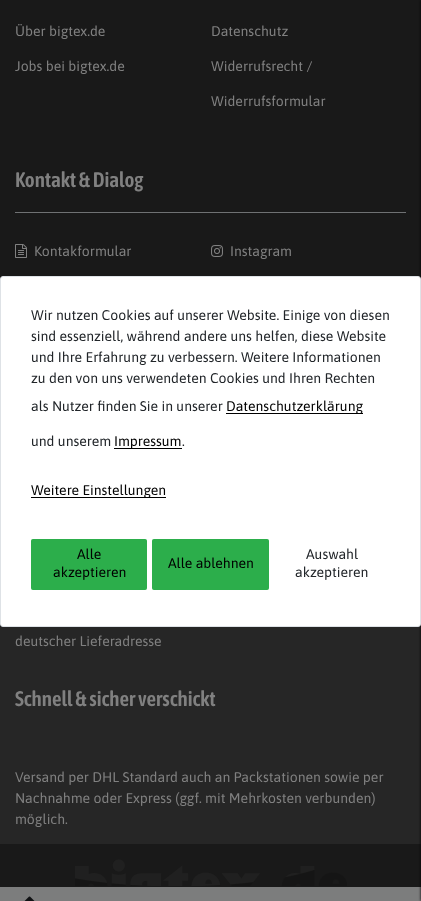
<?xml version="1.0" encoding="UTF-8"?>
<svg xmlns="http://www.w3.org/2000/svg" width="421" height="901">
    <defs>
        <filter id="blur1" x="-50%" y="-200%" width="200%" height="500%"><feGaussianBlur stdDeviation="1.5"/></filter>
    </defs>
    <rect width="100%" height="100%" fill="#7C7D7D"/>
    <rect x="0" y="0" width="421" height="279" fill="#191919"/>
    <text x="15" y="36" font-family="Asap" font-size="14" fill="#808080">Über bigtex.de</text>
    <text x="15" y="71" font-family="Asap" font-size="14" fill="#808080">Jobs bei bigtex.de</text>
    <text x="211" y="36" font-family="Asap" font-size="14" fill="#808080">Datenschutz</text>
    <text x="211" y="71" font-family="Asap" font-size="14" fill="#808080">Widerrufsrecht /</text>
    <text x="211" y="106" font-family="Asap" font-size="14" fill="#808080">Widerrufsformular</text>
    <rect x="15" y="212" width="391" height="1" fill="#6F7173"/>
    <text x="15" y="187" font-family="Asap Condensed" font-size="21" font-weight="600" fill="#808080">Kontakt &amp; Dialog</text>
    <image x="15" y="244" width="12" height="14" href="img_01.png"/>
    <text x="34" y="256" font-family="Asap" font-size="14" fill="#808080">Kontakformular</text>
    <image x="211" y="245" width="12" height="12" href="img_02.png"/>
    <text x="230" y="256" font-family="Asap" font-size="14" fill="#808080">Instagram</text>
    <rect x="0" y="624" width="421" height="220" fill="#262626"/>
    <rect x="0" y="844" width="421" height="43" fill="#191919"/>
    <rect x="421" y="0" width="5" height="901" fill="#000000" filter="url(#blur1)"/>
    <rect x="0.5" y="276.5" width="420" height="350" rx="2.5" fill="#FFFFFF" stroke="#DEE2E6"/>
    <text font-family="Asap" font-size="14" fill="#212529">
        <tspan x="31" y="320">Wir nutzen Cookies auf unserer Website. Einige von diesen</tspan>
        <tspan x="31" y="341">sind essenziell, während andere uns helfen, diese Website</tspan>
        <tspan x="31" y="362">und Ihre Erfahrung zu verbessern. Weitere Informationen</tspan>
        <tspan x="31" y="383">zu den von uns verwendeten Cookies und Ihren Rechten</tspan>
    </text>
    <text x="31" y="411" font-family="Asap" font-size="14" fill="#212529">als Nutzer finden Sie in unserer</text>
    <rect x="226" y="413" width="137" height="1" fill="#000000"/>
    <text x="226" y="411" font-family="Asap" font-size="14" fill="#000000">Datenschutzerklärung</text>
    <text x="31" y="446" font-family="Asap" font-size="14" fill="#212529">und unserem</text>
    <rect x="114" y="448" width="68" height="1" fill="#000000"/>
    <text x="114" y="446" font-family="Asap" font-size="14" fill="#000000">Impressum</text>
    <text x="182" y="446" font-family="Asap" font-size="14" fill="#212529">.</text>
    <rect x="31" y="497" width="135" height="1" fill="#000000"/>
    <text x="31" y="495" font-family="Asap" font-size="14" fill="#000000">Weitere Einstellungen</text>
    <rect x="31.5" y="539.5" width="115" height="50" rx="1" fill="#2CAE4B" stroke="#2CAE4B"/>
    <text x="77" y="559" font-family="Asap" font-size="14" fill="#000000">Alle</text>
    <text x="53" y="577" font-family="Asap" font-size="14" fill="#000000">akzeptieren</text>
    <rect x="152.5" y="539.5" width="116" height="50" rx="1" fill="#2CAE4B" stroke="#2CAE4B"/>
    <text x="168" y="568" font-family="Asap" font-size="14" fill="#000000">Alle ablehnen</text>
    <text x="306" y="559" font-family="Asap" font-size="14" fill="#212529">Auswahl</text>
    <text x="295" y="577" font-family="Asap" font-size="14" fill="#212529">akzeptieren</text>
    <text x="15" y="646" font-family="Asap" font-size="14" fill="#808080">deutscher Lieferadresse</text>
    <text x="15" y="706" font-family="Asap Condensed" font-size="21" font-weight="600" fill="#808080">Schnell &amp; sicher verschickt</text>
    <text font-family="Asap" font-size="14" fill="#808080">
        <tspan x="15" y="782">Versand per DHL Standard auch an Packstationen sowie per</tspan>
        <tspan x="15" y="803">Nachnahme oder Express (ggf. mit Mehrkosten verbunden)</tspan>
        <tspan x="15" y="824">möglich.</tspan>
    </text>
    <image x="75" y="859" width="272" height="27" href="img_03.png"/>
    <image x="24" y="896" width="11" height="5" href="img_04.png"/>
</svg>
